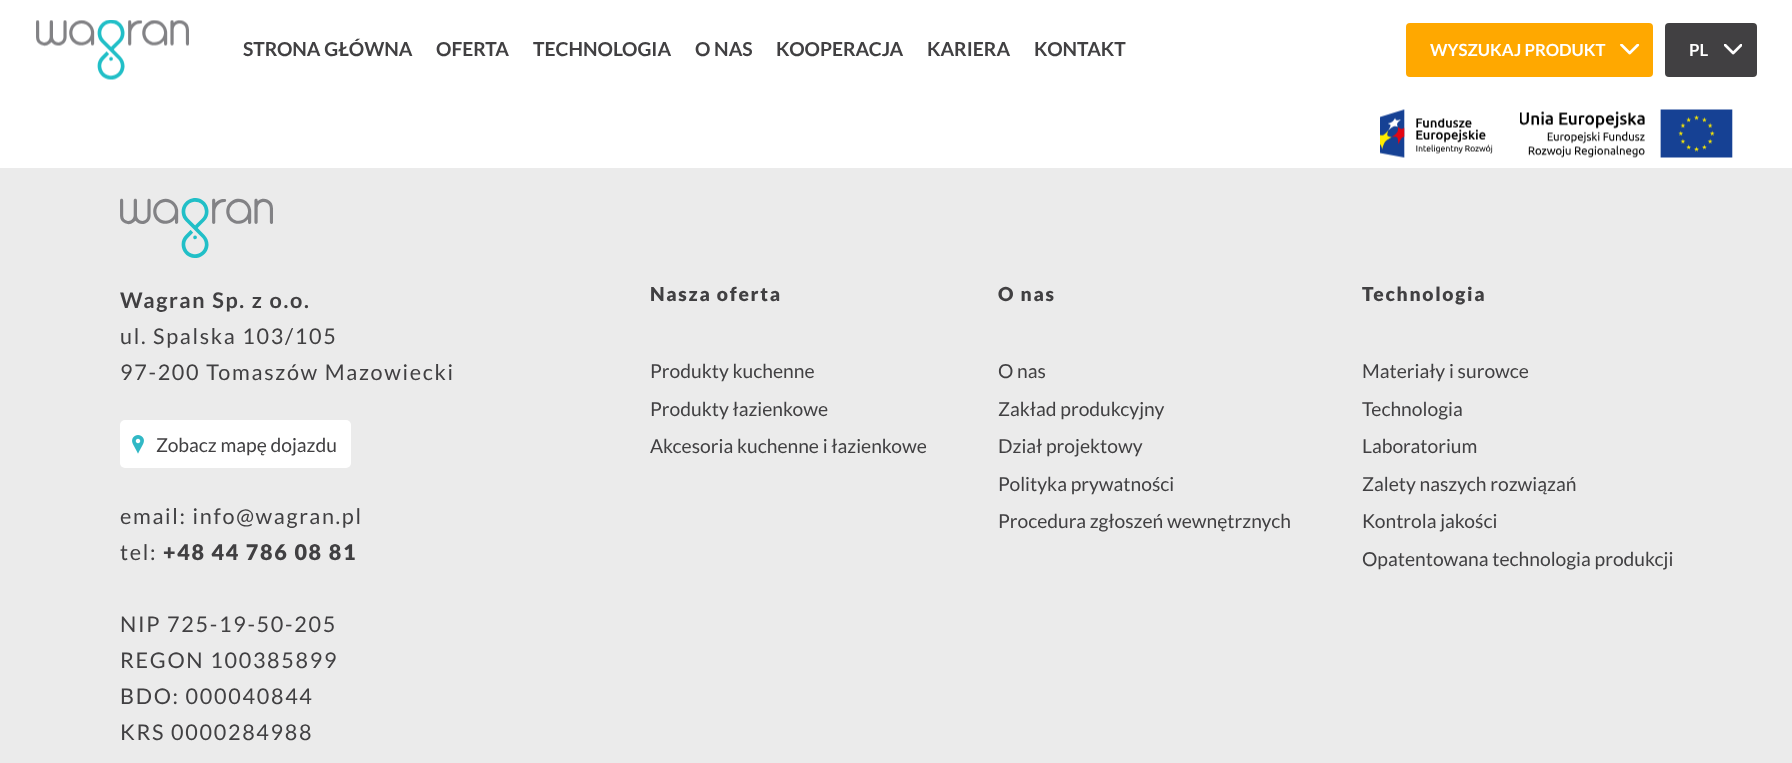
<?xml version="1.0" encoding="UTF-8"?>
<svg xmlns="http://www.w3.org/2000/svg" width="1792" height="763">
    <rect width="100%" height="100%" fill="#EBEBEB"/>
    <rect x="0" y="0" width="1792" height="168" fill="#FFFFFF"/>
    <image x="36" y="20" width="153" height="60" href="img_01.png"/>
    <text x="243" y="56" font-family="Lato" font-size="19.25" font-weight="700" fill="#414042">STRONA GŁÓWNA</text>
    <text x="436" y="56" font-family="Lato" font-size="19.25" font-weight="700" fill="#414042">OFERTA</text>
    <text x="533" y="56" font-family="Lato" font-size="19.25" font-weight="700" fill="#414042">TECHNOLOGIA</text>
    <text x="695" y="56" font-family="Lato" font-size="19.25" font-weight="700" fill="#414042">O NAS</text>
    <text x="776" y="56" font-family="Lato" font-size="19.25" font-weight="700" fill="#414042">KOOPERACJA</text>
    <text x="927" y="56" font-family="Lato" font-size="19.25" font-weight="700" fill="#414042">KARIERA</text>
    <text x="1034" y="56" font-family="Lato" font-size="19.25" font-weight="700" fill="#414042">KONTAKT</text>
    <rect x="1406" y="23" width="247" height="54" rx="4" fill="#FFA800"/>
    <image x="1620" y="44" width="20" height="11" href="img_02.png"/>
    <text x="1430" y="56" font-family="Lato" font-size="16.75" font-weight="700" fill="#FFFFFF">WYSZUKAJ PRODUKT</text>
    <rect x="1665" y="23" width="92" height="54" rx="4" fill="#414042"/>
    <image x="1724" y="44" width="18" height="11" href="img_03.png"/>
    <text x="1689" y="56" font-family="Lato" font-size="16.75" font-weight="700" fill="#FFFFFF">PL</text>
    <image x="1380" y="109" width="113" height="49" href="img_04.png"/>
    <image x="1520" y="109" width="213" height="49" href="img_05.png"/>
    <image x="120" y="198" width="153" height="60" href="img_06.png"/>
    <text x="120" y="308" font-family="Lato" font-size="21.6" font-weight="700" letter-spacing="1.7" fill="#414042">Wagran Sp. z o.o.</text>
    <text font-family="Lato" font-size="21.6" letter-spacing="1.7" fill="#414042">
        <tspan x="120" y="344">ul. Spalska 103/105</tspan>
        <tspan x="120" y="380">97-200 Tomaszów Mazowiecki</tspan>
    </text>
    <rect x="120" y="420" width="231" height="48" rx="5" fill="#FFFFFF"/>
    <image x="132" y="435" width="12" height="19" href="img_07.png"/>
    <text x="156" y="452" font-family="Lato" font-size="19.25" fill="#414042">Zobacz mapę dojazdu</text>
    <text font-family="Lato" font-size="21.6" letter-spacing="1.7" fill="#414042">
        <tspan x="120" y="524">email: info@wagran.pl</tspan>
        <tspan x="120" y="560">tel:</tspan>
    </text>
    <text x="163" y="560" font-family="Lato" font-size="21.6" font-weight="900" letter-spacing="1.7" fill="#414042">+48 44 786 08 81</text>
    <text font-family="Lato" font-size="21.6" letter-spacing="1.7" fill="#414042">
        <tspan x="120" y="632">NIP 725-19-50-205</tspan>
        <tspan x="120" y="668">REGON 100385899</tspan>
        <tspan x="120" y="704">BDO: 000040844</tspan>
        <tspan x="120" y="740">KRS 0000284988</tspan>
    </text>
    <text x="650" y="301" font-family="Lato" font-size="19.25" font-weight="900" letter-spacing="1.7" fill="#414042">Nasza oferta</text>
    <text font-family="Lato" font-size="19.25" fill="#414042">
        <tspan x="650" y="378">Produkty kuchenne</tspan>
        <tspan x="650" y="416">Produkty łazienkowe</tspan>
        <tspan x="650" y="453">Akcesoria kuchenne i łazienkowe</tspan>
    </text>
    <text x="998" y="301" font-family="Lato" font-size="19.25" font-weight="900" letter-spacing="1.7" fill="#414042">O nas</text>
    <text font-family="Lato" font-size="19.25" fill="#414042">
        <tspan x="998" y="378">O nas</tspan>
        <tspan x="998" y="416">Zakład produkcyjny</tspan>
        <tspan x="998" y="453">Dział projektowy</tspan>
        <tspan x="998" y="491">Polityka prywatności</tspan>
        <tspan x="998" y="528">Procedura zgłoszeń wewnętrznych</tspan>
    </text>
    <text x="1362" y="301" font-family="Lato" font-size="19.25" font-weight="900" letter-spacing="1.7" fill="#414042">Technologia</text>
    <text font-family="Lato" font-size="19.25" fill="#414042">
        <tspan x="1362" y="378">Materiały i surowce</tspan>
        <tspan x="1362" y="416">Technologia</tspan>
        <tspan x="1362" y="453">Laboratorium</tspan>
        <tspan x="1362" y="491">Zalety naszych rozwiązań</tspan>
        <tspan x="1362" y="528">Kontrola jakości</tspan>
        <tspan x="1362" y="566">Opatentowana technologia produkcji</tspan>
    </text>
</svg>
